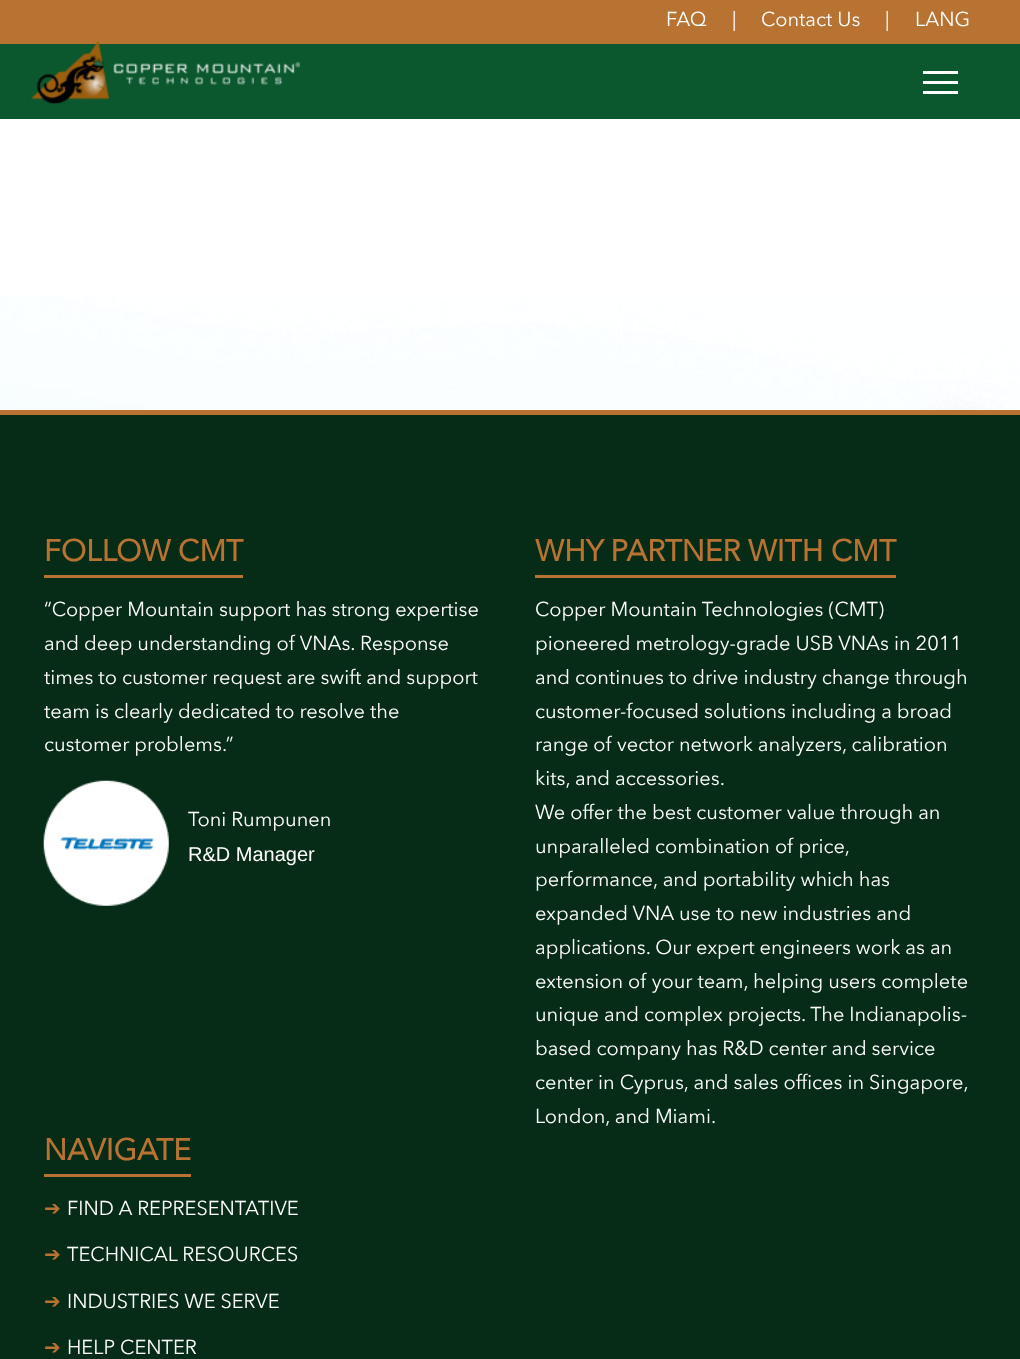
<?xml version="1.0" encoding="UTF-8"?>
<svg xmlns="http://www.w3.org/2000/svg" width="1020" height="1359">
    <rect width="100%" height="100%" fill="#FFFFFF"/>
    <rect x="0" y="44" width="1020" height="75" fill="#0B572E"/>
    <rect x="0" y="0" width="1020" height="44" fill="#B87333"/>
    <text x="666" y="26" font-family="Avenir Next" font-size="20" fill="#FFFFFF">FAQ</text>
    <text x="732" y="26" font-family="Avenir Next" font-size="20" fill="#FFFFFF">|</text>
    <text x="761" y="26" font-family="Avenir Next" font-size="20" fill="#FFFFFF">Contact Us</text>
    <text x="885" y="26" font-family="Avenir Next" font-size="20" fill="#FFFFFF">|</text>
    <text x="915" y="26" font-family="Avenir Next" font-size="20" fill="#FFFFFF">LANG</text>
    <image x="31" y="41" width="269" height="63" href="img_01.png"/>
    <rect x="923" y="71" width="35" height="3" fill="#FFFFFF"/>
    <rect x="923" y="81" width="35" height="3" fill="#FFFFFF"/>
    <rect x="923" y="91" width="35" height="3" fill="#FFFFFF"/>
    <image x="0" y="295" width="1020" height="115" href="img_02.png"/>
    <rect x="0" y="415" width="1020" height="944" fill="#062C17"/>
    <rect x="0" y="410" width="1020" height="5" fill="#B87333"/>
    <rect x="44" y="575" width="199" height="3" fill="#B87333"/>
    <text x="44" y="561" font-family="Avenir Next" font-size="30" font-weight="700" fill="#B87333">FOLLOW CMT</text>
    <text font-family="Avenir Next" font-size="20" fill="#FFFFFF">
        <tspan x="44" y="616">“Copper Mountain support has strong expertise</tspan>
        <tspan x="44" y="650">and deep understanding of VNAs. Response</tspan>
        <tspan x="44" y="684">times to customer request are swift and support</tspan>
        <tspan x="44" y="718">team is clearly dedicated to resolve the</tspan>
        <tspan x="44" y="751">customer problems.”</tspan>
    </text>
    <image x="43" y="780" width="126" height="126" href="img_03.png"/>
    <text x="188" y="826" font-family="Avenir Next" font-size="20" fill="#FFFFFF">Toni Rumpunen</text>
    <text x="188" y="861" font-family="Liberation Sans" font-size="20" fill="#FFFFFF">R&amp;D Manager</text>
    <rect x="535" y="575" width="361" height="3" fill="#B87333"/>
    <text x="535" y="561" font-family="Avenir Next" font-size="30" font-weight="700" fill="#B87333">WHY PARTNER WITH CMT</text>
    <text font-family="Avenir Next" font-size="20" fill="#FFFFFF">
        <tspan x="535" y="616">Copper Mountain Technologies (CMT)</tspan>
        <tspan x="535" y="650">pioneered metrology-grade USB VNAs in 2011</tspan>
        <tspan x="535" y="684">and continues to drive industry change through</tspan>
        <tspan x="535" y="718">customer-focused solutions including a broad</tspan>
        <tspan x="535" y="751">range of vector network analyzers, calibration</tspan>
        <tspan x="535" y="785">kits, and accessories.</tspan>
        <tspan x="535" y="819">We offer the best customer value through an</tspan>
        <tspan x="535" y="853">unparalleled combination of price,</tspan>
        <tspan x="535" y="886">performance, and portability which has</tspan>
        <tspan x="535" y="920">expanded VNA use to new industries and</tspan>
        <tspan x="535" y="954">applications. Our expert engineers work as an</tspan>
        <tspan x="535" y="988">extension of your team, helping users complete</tspan>
        <tspan x="535" y="1021">unique and complex projects. The Indianapolis-</tspan>
        <tspan x="535" y="1055">based company has R&amp;D center and service</tspan>
        <tspan x="535" y="1089">center in Cyprus, and sales offices in Singapore,</tspan>
        <tspan x="535" y="1123">London, and Miami.</tspan>
    </text>
    <rect x="44" y="1174" width="147" height="3" fill="#B87333"/>
    <text x="44" y="1160" font-family="Avenir Next" font-size="30" font-weight="700" fill="#B87333">NAVIGATE</text>
    <text x="44" y="1215" font-family="DejaVu Sans" font-size="20" fill="#B87333">➔</text>
    <text x="67" y="1215" font-family="Avenir Next" font-size="20" fill="#FFFFFF">FIND A REPRESENTATIVE</text>
    <text x="44" y="1261" font-family="DejaVu Sans" font-size="20" fill="#B87333">➔</text>
    <text x="67" y="1261" font-family="Avenir Next" font-size="20" fill="#FFFFFF">TECHNICAL RESOURCES</text>
    <text x="44" y="1308" font-family="DejaVu Sans" font-size="20" fill="#B87333">➔</text>
    <text x="67" y="1308" font-family="Avenir Next" font-size="20" fill="#FFFFFF">INDUSTRIES WE SERVE</text>
    <text x="44" y="1354" font-family="DejaVu Sans" font-size="20" fill="#B87333">➔</text>
    <text x="67" y="1354" font-family="Avenir Next" font-size="20" fill="#FFFFFF">HELP CENTER</text>
</svg>
